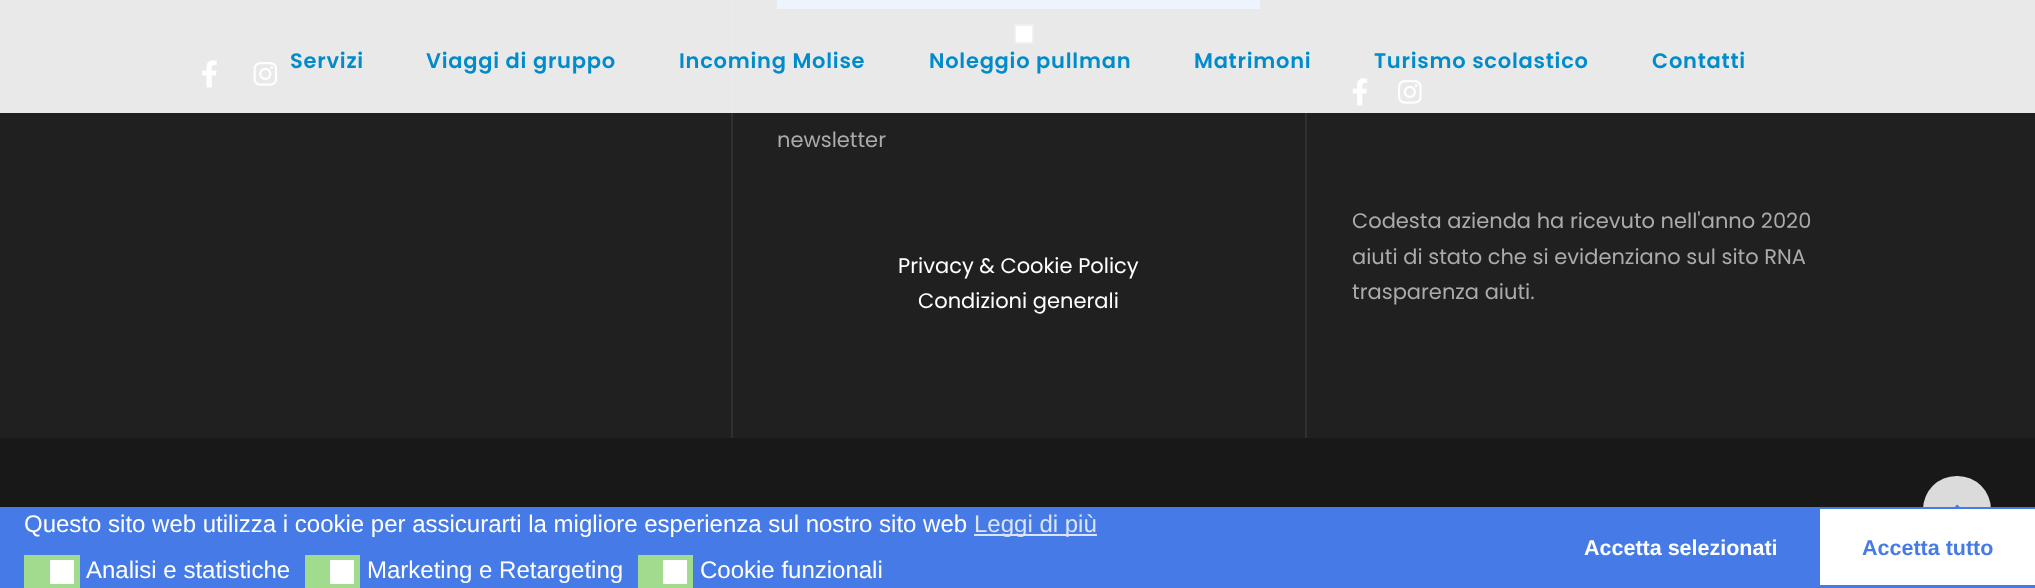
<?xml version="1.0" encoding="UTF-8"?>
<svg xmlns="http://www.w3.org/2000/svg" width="2035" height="588">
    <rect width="100%" height="100%" fill="#202020"/>
    <image x="202" y="60" width="15" height="28" href="img_01.png"/>
    <image x="253" y="62" width="25" height="24" href="img_02.png"/>
    <rect x="731" y="0" width="2" height="438" fill="#303030"/>
    <rect x="777" y="0" width="483" height="9" fill="#468AE7"/>
    <rect x="1015" y="25" width="18" height="18" rx="2" fill="#FFFFFF" stroke="#767676" stroke-width="2"/>
    <rect x="1305" y="0" width="2" height="438" fill="#303030"/>
    <image x="1352" y="78" width="16" height="28" href="img_03.png"/>
    <image x="1398" y="80" width="24" height="24" href="img_04.png"/>
    <rect x="0" y="0" width="2035" height="113" fill="#FFFFFF" fill-opacity="0.9"/>
    <text x="290" y="68" font-family="Poppins" font-size="21" font-weight="600" letter-spacing="0.75" fill="#008CCB">Servizi</text>
    <text x="426" y="68" font-family="Poppins" font-size="21" font-weight="600" letter-spacing="0.75" fill="#008CCB">Viaggi di gruppo</text>
    <text x="679" y="68" font-family="Poppins" font-size="21" font-weight="600" letter-spacing="0.75" fill="#008CCB">Incoming Molise</text>
    <text x="929" y="68" font-family="Poppins" font-size="21" font-weight="600" letter-spacing="0.75" fill="#008CCB">Noleggio pullman</text>
    <text x="1194" y="68" font-family="Poppins" font-size="21" font-weight="600" letter-spacing="0.75" fill="#008CCB">Matrimoni</text>
    <text x="1374" y="68" font-family="Poppins" font-size="21" font-weight="600" letter-spacing="0.75" fill="#008CCB">Turismo scolastico</text>
    <text x="1652" y="68" font-family="Poppins" font-size="21" font-weight="600" letter-spacing="0.75" fill="#008CCB">Contatti</text>
    <text x="777" y="147" font-family="Poppins" font-size="21" fill="#ABABAB">newsletter</text>
    <text x="898" y="273" font-family="Poppins" font-size="21" fill="#FFFFFF">Privacy &amp; Cookie Policy</text>
    <text x="918" y="308" font-family="Poppins" font-size="21" fill="#FFFFFF">Condizioni generali</text>
    <text font-family="Poppins" font-size="21" fill="#ABABAB">
        <tspan x="1352" y="228">Codesta azienda ha ricevuto nell'anno 2020</tspan>
        <tspan x="1352" y="264">aiuti di stato che si evidenziano sul sito RNA</tspan>
        <tspan x="1352" y="299">trasparenza aiuti.</tspan>
    </text>
    <rect x="0" y="438" width="2035" height="69" fill="#181818"/>
    <rect x="1923" y="476" width="68" height="67" rx="33.5" fill="#DBDBDB"/>
    <image x="1954" y="504" width="6" height="3" href="img_05.png"/>
    <rect x="0" y="507" width="2035" height="81" fill="#467BE7"/>
    <text x="24" y="532" font-family="Liberation Sans" font-size="24" fill="#FFFFFF">Questo sito web utilizza i cookie per assicurarti la migliore esperienza sul nostro sito web</text>
    <rect x="974" y="534" width="123" height="2" fill="#DAE5FA"/>
    <text x="974" y="532" font-family="Liberation Sans" font-size="24" fill="#DAE5FA">Leggi di più</text>
    <rect x="24" y="555" width="56" height="33" fill="#A0DB8E"/>
    <rect x="50" y="560" width="24" height="24" fill="#FFFFFF"/>
    <text x="86" y="578" font-family="Liberation Sans" font-size="24" fill="#FFFFFF">Analisi e statistiche</text>
    <rect x="305" y="555" width="55" height="33" fill="#A0DB8E"/>
    <rect x="330" y="560" width="24" height="24" fill="#FFFFFF"/>
    <text x="367" y="578" font-family="Liberation Sans" font-size="24" fill="#FFFFFF">Marketing e Retargeting</text>
    <rect x="638" y="555" width="55" height="33" fill="#A0DB8E"/>
    <rect x="663" y="560" width="24" height="24" fill="#FFFFFF"/>
    <text x="700" y="578" font-family="Liberation Sans" font-size="24" fill="#FFFFFF">Cookie funzionali</text>
    <text x="1584" y="555" font-family="Liberation Sans" font-size="21.5" font-weight="700" fill="#FFFFFF">Accetta selezionati</text>
    <rect x="1820" y="509" width="215" height="76" fill="#FFFFFF"/>
    <text x="1862" y="555" font-family="Liberation Sans" font-size="21.5" font-weight="700" fill="#467BE7">Accetta tutto</text>
</svg>
